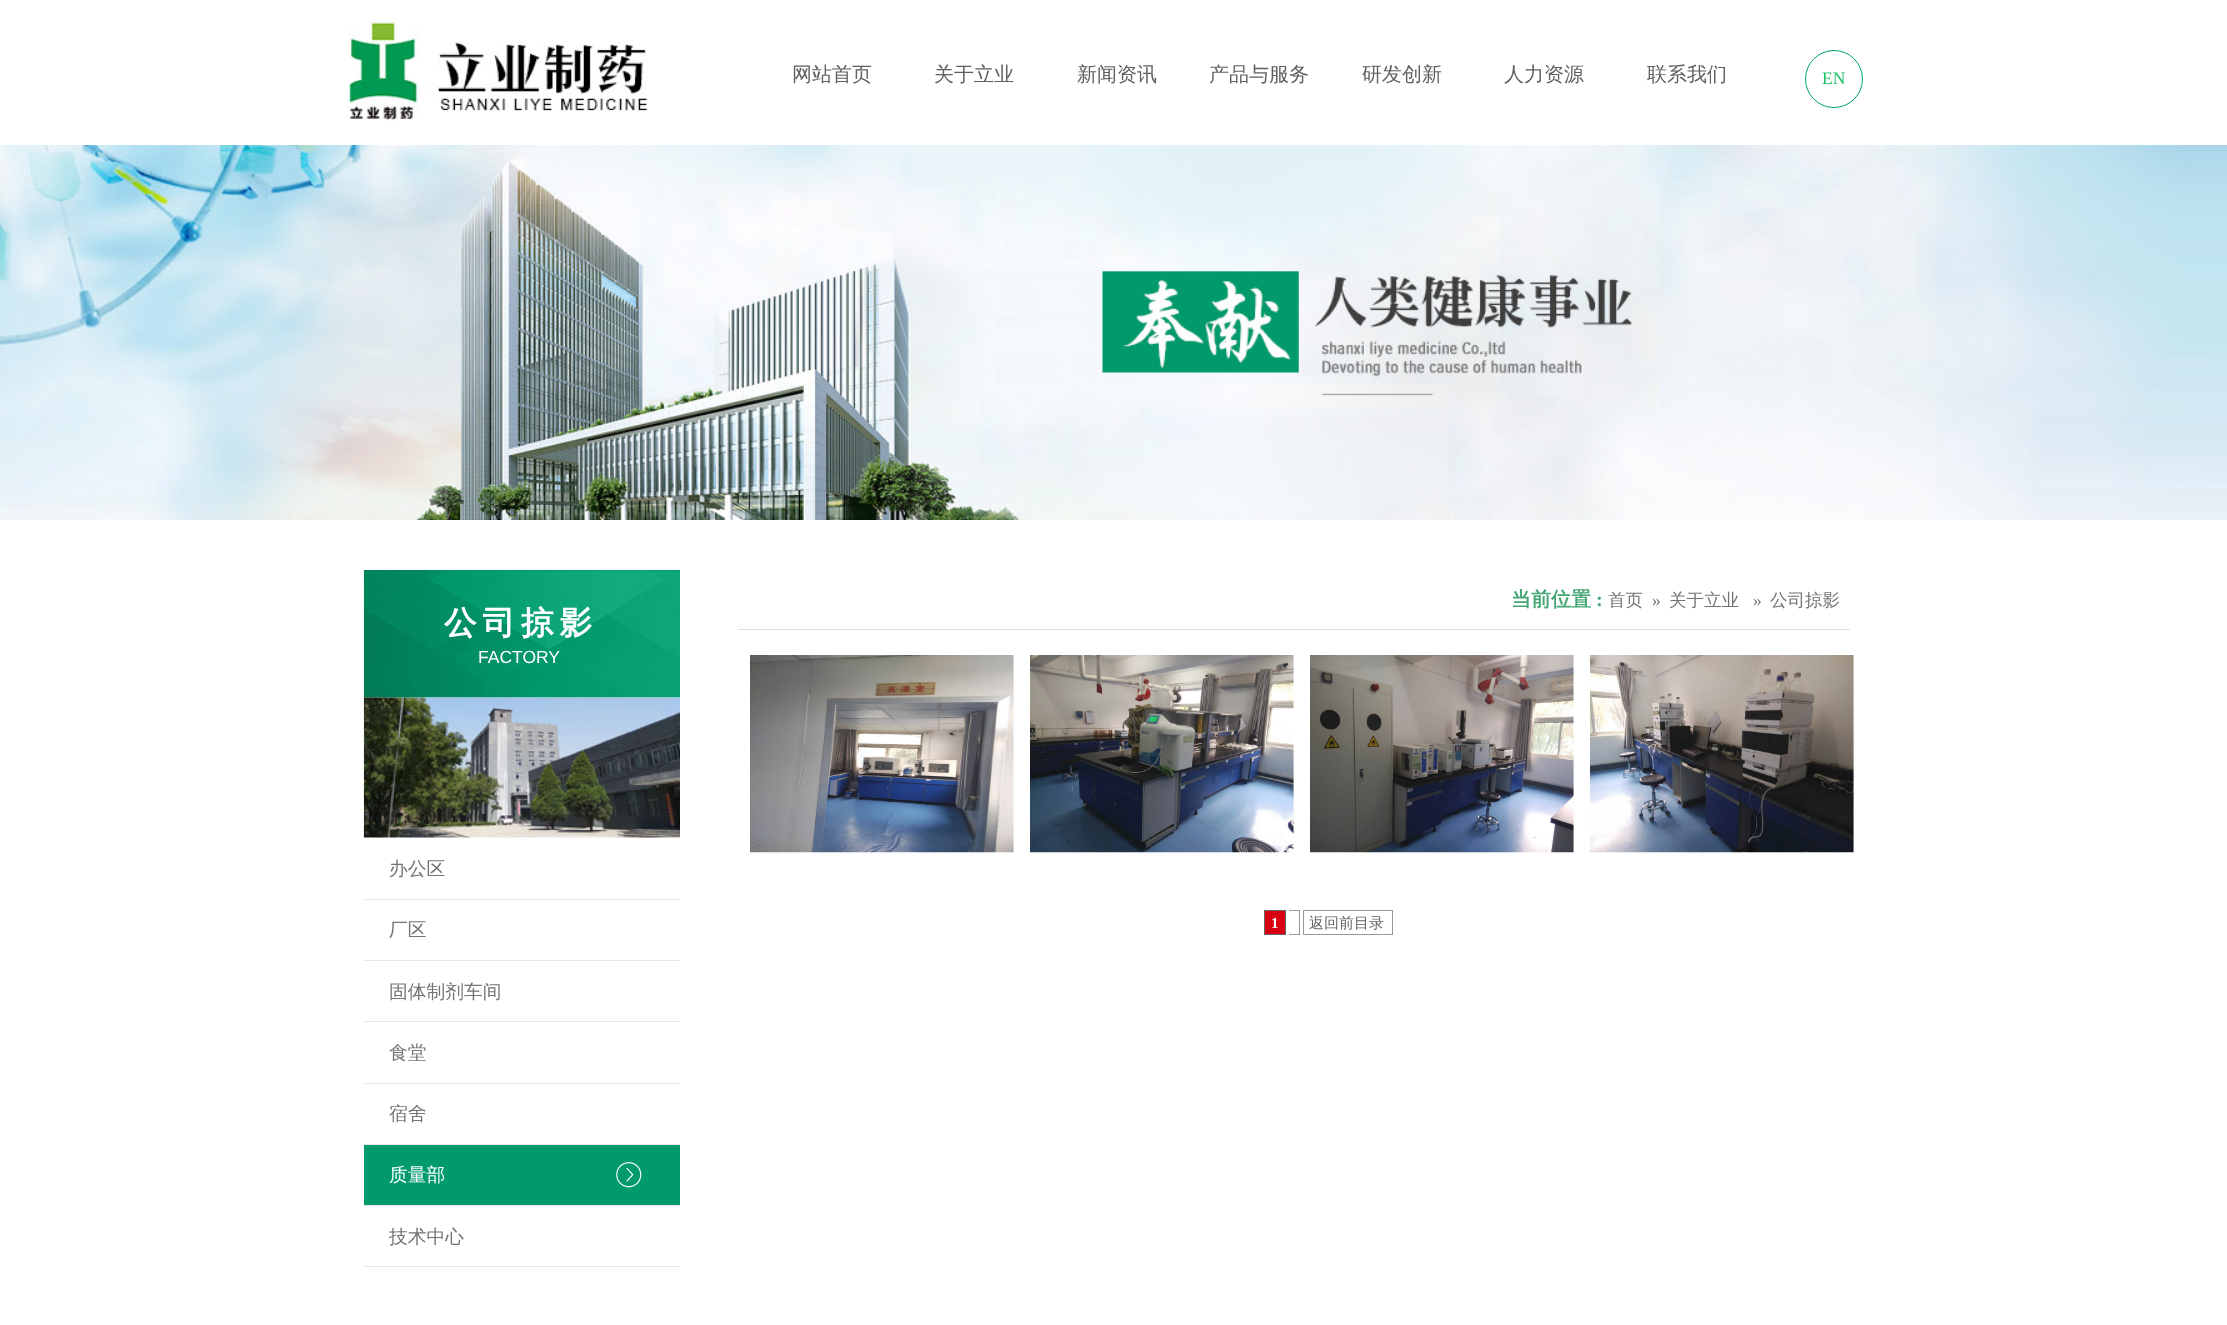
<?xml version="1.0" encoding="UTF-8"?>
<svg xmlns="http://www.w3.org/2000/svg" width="2227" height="1325">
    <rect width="100%" height="100%" fill="#FFFFFF"/>
    <image x="348" y="20" width="300" height="101" href="img_01.png"/>
    <text x="792" y="81" font-family="WenQuanYi Zen Hei" font-size="20" font-weight="500" fill="#606060">网站首页</text>
    <text x="934" y="81" font-family="WenQuanYi Zen Hei" font-size="20" font-weight="500" fill="#606060">关于立业</text>
    <text x="1077" y="81" font-family="WenQuanYi Zen Hei" font-size="20" font-weight="500" fill="#606060">新闻资讯</text>
    <text x="1209" y="81" font-family="WenQuanYi Zen Hei" font-size="20" font-weight="500" fill="#606060">产品与服务</text>
    <text x="1362" y="81" font-family="WenQuanYi Zen Hei" font-size="20" font-weight="500" fill="#606060">研发创新</text>
    <text x="1504" y="81" font-family="WenQuanYi Zen Hei" font-size="20" font-weight="500" fill="#606060">人力资源</text>
    <text x="1647" y="81" font-family="WenQuanYi Zen Hei" font-size="20" font-weight="500" fill="#606060">联系我们</text>
    <circle cx="1834" cy="79" r="28.5" fill="none" stroke="#00A171"/>
    <text x="1822" y="84" font-family="Liberation Serif" font-size="17.5" fill="#20C068">EN</text>
    <image x="0" y="145" width="2227" height="375" href="img_02.png"/>
    <image x="363" y="570" width="317" height="128" href="img_03.png"/>
    <text x="444" y="634" font-family="WenQuanYi Zen Hei" font-size="32.5" font-weight="700" letter-spacing="6" fill="#FFFFFF">公司掠影</text>
    <text x="478" y="663" font-family="Liberation Sans" font-size="17.5" fill="#FFFFFF">FACTORY</text>
    <image x="363" y="697" width="317" height="141" href="img_04.png"/>
    <rect x="364" y="899" width="316" height="1" fill="#E8E8E8"/>
    <text x="389" y="875" font-family="WenQuanYi Zen Hei" font-size="18.75" font-weight="500" fill="#737373">办公区</text>
    <rect x="364" y="960" width="316" height="1" fill="#E8E8E8"/>
    <text x="389" y="936" font-family="WenQuanYi Zen Hei" font-size="18.75" font-weight="500" fill="#737373">厂区</text>
    <rect x="364" y="1021" width="316" height="1" fill="#E8E8E8"/>
    <text x="389" y="998" font-family="WenQuanYi Zen Hei" font-size="18.75" font-weight="500" fill="#737373">固体制剂车间</text>
    <rect x="364" y="1083" width="316" height="1" fill="#E8E8E8"/>
    <text x="389" y="1059" font-family="WenQuanYi Zen Hei" font-size="18.75" font-weight="500" fill="#737373">食堂</text>
    <rect x="364" y="1144" width="316" height="1" fill="#E8E8E8"/>
    <text x="389" y="1120" font-family="WenQuanYi Zen Hei" font-size="18.75" font-weight="500" fill="#737373">宿舍</text>
    <rect x="364" y="1205" width="316" height="1" fill="#E8E8E8"/>
    <rect x="364" y="1145" width="316" height="60" fill="#019A6C"/>
    <text x="389" y="1181" font-family="WenQuanYi Zen Hei" font-size="18.75" font-weight="500" fill="#FFFFFF">质量部</text>
    <image x="616" y="1162" width="26" height="26" href="img_05.png"/>
    <rect x="364" y="1266" width="316" height="1" fill="#E8E8E8"/>
    <text x="389" y="1243" font-family="WenQuanYi Zen Hei" font-size="18.75" font-weight="500" fill="#737373">技术中心</text>
    <rect x="738" y="629" width="1112" height="1" fill="#DDDDDD"/>
    <text x="1511" y="606" font-family="WenQuanYi Zen Hei" font-size="20" font-weight="700" fill="#45A774">当前位置</text>
    <text x="1596" y="606" font-family="Liberation Serif" font-size="20" font-weight="700" fill="#45A774">:</text>
    <text x="1608" y="606" font-family="WenQuanYi Zen Hei" font-size="17.5" font-weight="500" fill="#737373">首页</text>
    <text x="1652" y="606" font-family="Liberation Serif" font-size="17.5" fill="#737373">»</text>
    <text x="1669" y="606" font-family="WenQuanYi Zen Hei" font-size="17.5" font-weight="500" fill="#737373">关于立业</text>
    <text x="1753" y="606" font-family="Liberation Serif" font-size="17.5" fill="#737373">»</text>
    <text x="1770" y="606" font-family="WenQuanYi Zen Hei" font-size="17.5" font-weight="500" fill="#737373">公司掠影</text>
    <image x="750" y="655" width="264" height="198" href="img_06.png"/>
    <image x="1030" y="655" width="264" height="198" href="img_07.png"/>
    <image x="1310" y="655" width="264" height="198" href="img_08.png"/>
    <image x="1590" y="655" width="264" height="198" href="img_09.png"/>
    <rect x="1264.5" y="910.5" width="21" height="24" fill="#D90011" stroke="#666666"/>
    <text x="1271" y="928" font-family="Liberation Serif" font-size="15" font-weight="700" fill="#FFFFFF">1</text>
    <rect x="1289" y="910" width="11" height="1" fill="#999999"/>
    <rect x="1299" y="910" width="1" height="25" fill="#999999"/>
    <rect x="1289" y="934" width="11" height="1" fill="#999999"/>
    <rect x="1303.5" y="910.5" width="89" height="24" fill="none" stroke="#999999"/>
    <text x="1309" y="928" font-family="WenQuanYi Zen Hei" font-size="15" font-weight="500" fill="#666666">返回前目录</text>
</svg>
